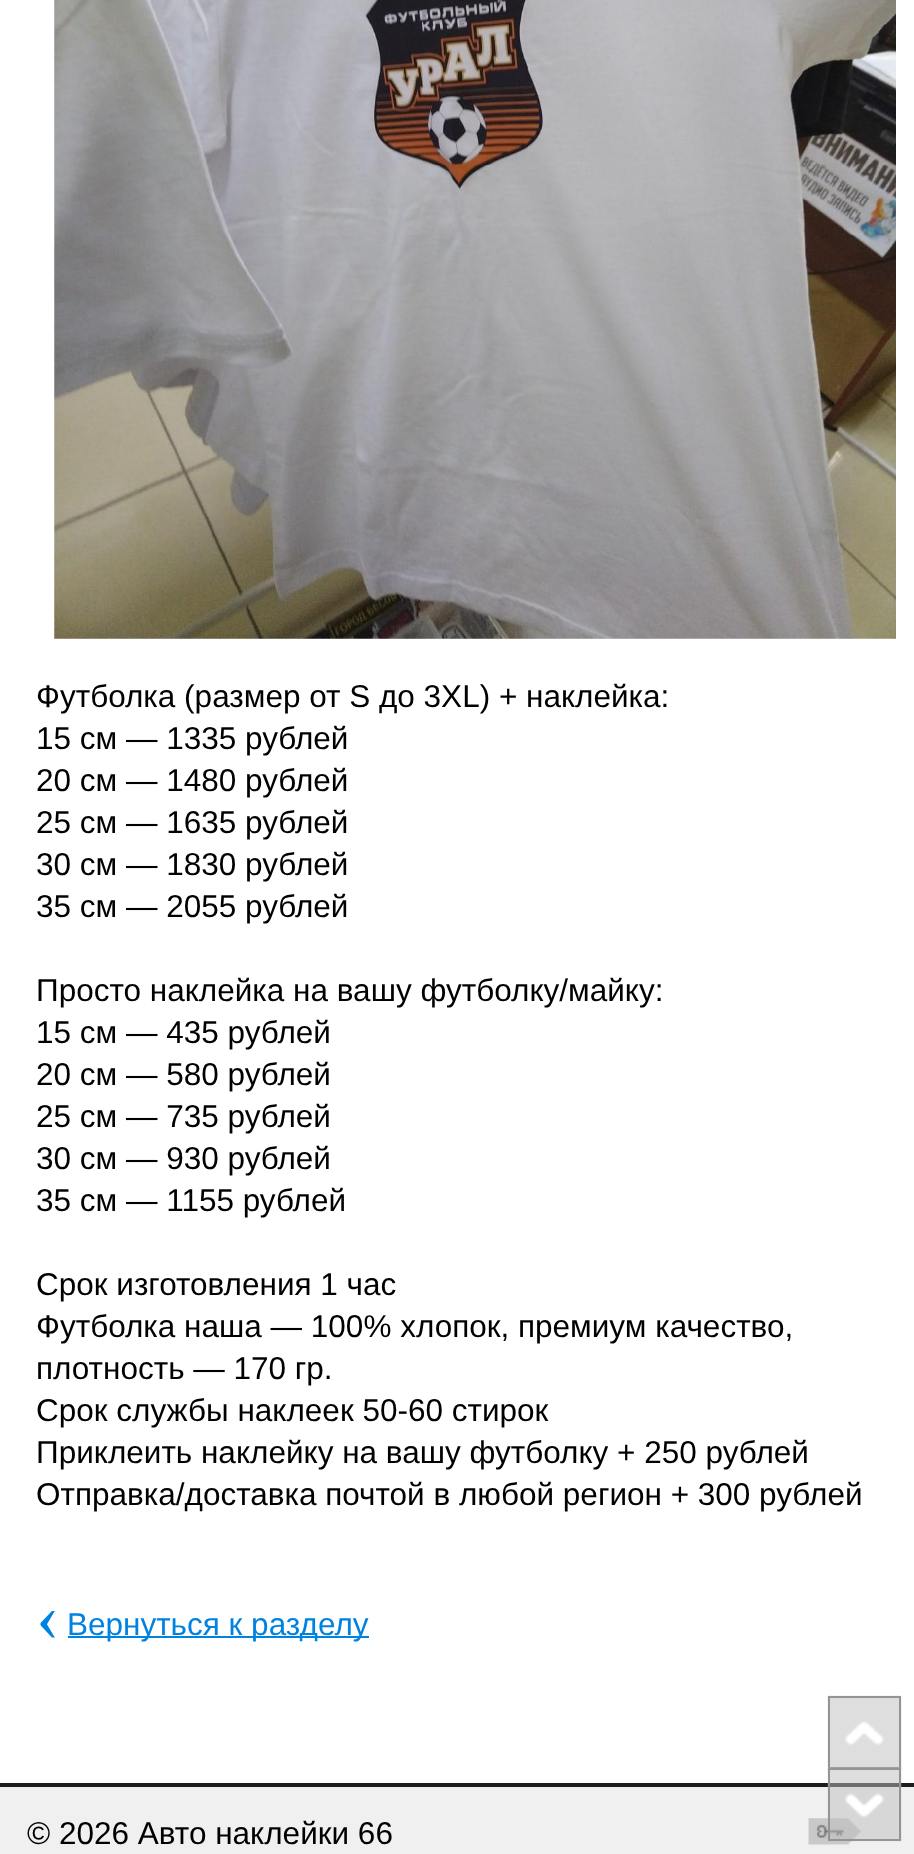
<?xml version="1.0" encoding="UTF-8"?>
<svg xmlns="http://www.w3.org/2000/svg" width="914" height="1854">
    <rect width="100%" height="100%" fill="#FFFFFF"/>
    <image x="54" y="0" width="842" height="639" href="img_01.png"/>
    <text font-family="Liberation Sans" font-size="31.5" fill="#000000">
        <tspan x="36" y="707">Футболка (размер от S до 3XL) + наклейка:</tspan>
        <tspan x="36" y="749">15 см — 1335 рублей</tspan>
        <tspan x="36" y="791">20 см — 1480 рублей</tspan>
        <tspan x="36" y="833">25 см — 1635 рублей</tspan>
        <tspan x="36" y="875">30 см — 1830 рублей</tspan>
        <tspan x="36" y="917">35 см — 2055 рублей</tspan>
    </text>
    <text font-family="Liberation Sans" font-size="31.5" fill="#000000">
        <tspan x="36" y="1001">Просто наклейка на вашу футболку/майку:</tspan>
        <tspan x="36" y="1043">15 см — 435 рублей</tspan>
        <tspan x="36" y="1085">20 см — 580 рублей</tspan>
        <tspan x="36" y="1127">25 см — 735 рублей</tspan>
        <tspan x="36" y="1169">30 см — 930 рублей</tspan>
        <tspan x="36" y="1211">35 см — 1155 рублей</tspan>
    </text>
    <text font-family="Liberation Sans" font-size="31.5" fill="#000000">
        <tspan x="36" y="1295">Срок изготовления 1 час</tspan>
        <tspan x="36" y="1337">Футболка наша — 100% хлопок, премиум качество,</tspan>
        <tspan x="36" y="1379">плотность — 170 гр.</tspan>
        <tspan x="36" y="1421">Срок службы наклеек 50-60 стирок</tspan>
        <tspan x="36" y="1463">Приклеить наклейку на вашу футболку + 250 рублей</tspan>
        <tspan x="36" y="1505">Отправка/доставка почтой в любой регион + 300 рублей</tspan>
    </text>
    <text x="36" y="1640" font-family="Liberation Serif" font-size="70" fill="#0083E0">‹</text>
    <rect x="68" y="1636" width="301" height="2" fill="#0083E0"/>
    <text x="67" y="1635" font-family="Liberation Sans" font-size="31.5" fill="#0083E0">Вернуться к разделу</text>
    <rect x="0" y="1787" width="914" height="67" fill="#F0F0F0"/>
    <rect x="0" y="1783" width="914" height="4" fill="#1D1D1D"/>
    <text x="27" y="1844" font-family="Liberation Sans" font-size="31.5" fill="#000000">© 2026 Авто наклейки 66</text>
    <image x="808" y="1818" width="53" height="27" href="img_02.png"/>
    <image x="827" y="1695" width="75" height="75" href="img_03.png"/>
    <rect x="829" y="1697" width="71" height="71" fill="none" stroke="#949494" stroke-width="2"/>
    <image x="827" y="1767" width="75" height="75" href="img_04.png"/>
    <rect x="829" y="1769" width="71" height="71" fill="none" stroke="#949494" stroke-width="2"/>
</svg>
